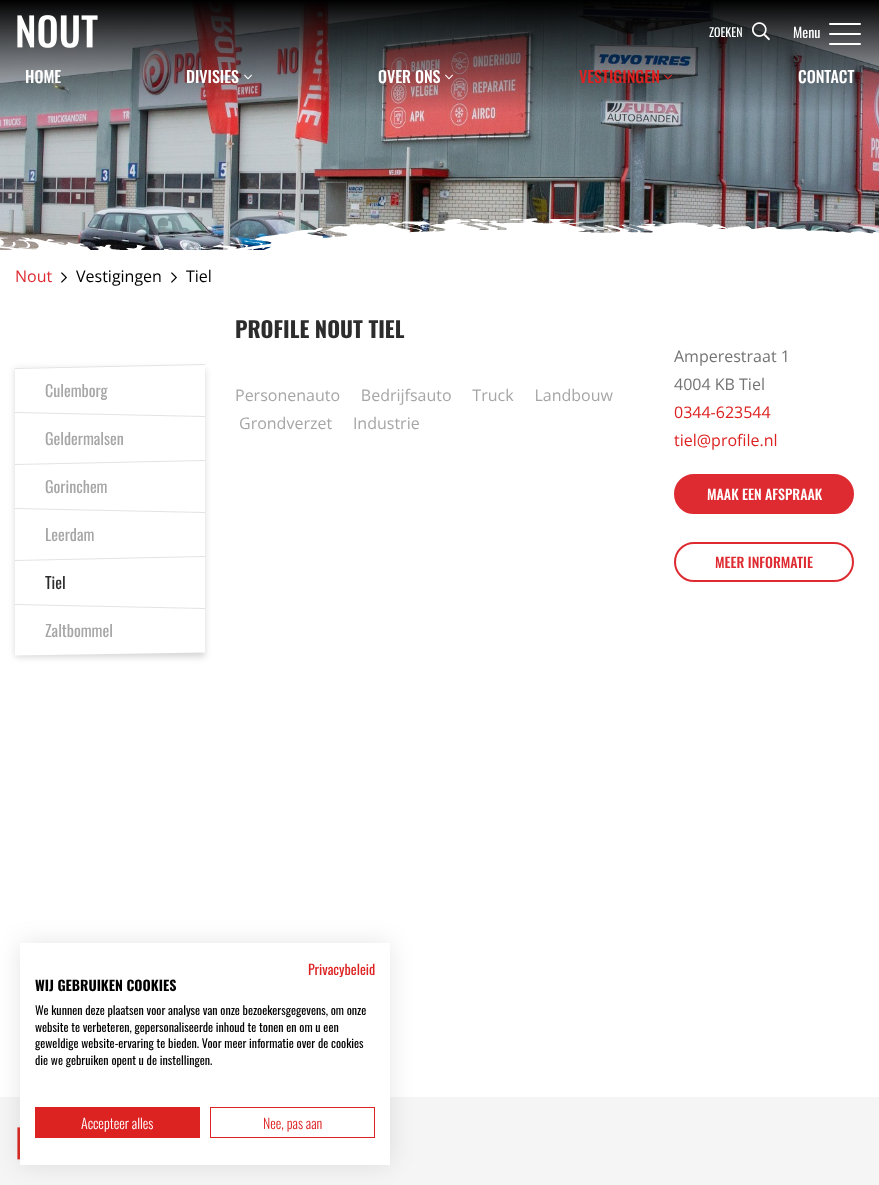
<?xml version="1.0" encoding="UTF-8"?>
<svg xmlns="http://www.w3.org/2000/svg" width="879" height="1185">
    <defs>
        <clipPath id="clip1"><path d="M 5 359 H 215 V 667 H 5 Z M 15 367.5 L 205 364.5 V 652.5 L 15 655.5 Z" clip-rule="evenodd"/></clipPath>
        <filter id="blur1" x="-50%" y="-200%" width="200%" height="500%"><feGaussianBlur stdDeviation="3"/></filter>
        <filter id="blur2" x="-50%" y="-200%" width="200%" height="500%"><feGaussianBlur stdDeviation="12"/></filter>
    </defs>
    <rect width="100%" height="100%" fill="#FFFFFF"/>
    <image x="0" y="0" width="879" height="250" href="img_01.png"/>
    <image x="0" y="218" width="879" height="32" href="img_02.png"/>
    <image x="17" y="15" width="81" height="33" href="img_03.png"/>
    <text x="709" y="37" font-family="Oswald" font-size="12" fill="#FFFFFF">ZOEKEN</text>
    <image x="752" y="22" width="18" height="19" href="img_04.png"/>
    <text x="793" y="38" font-family="Oswald" font-size="14" fill="#FFFFFF">Menu</text>
    <text x="793" y="62" font-family="Oswald" font-size="14" fill="#414348">S</text>
    <rect x="829" y="23" width="32" height="2" rx="1" fill="#FFFFFF"/>
    <rect x="829" y="33" width="32" height="2" rx="1" fill="#FFFFFF"/>
    <rect x="829" y="43" width="32" height="2" rx="1" fill="#FFFFFF"/>
    <text x="25" y="83" font-family="Oswald" font-size="16" font-weight="500" fill="#FFFFFF">HOME</text>
    <text x="186" y="83" font-family="Oswald" font-size="16" font-weight="500" fill="#FFFFFF">DIVISIES</text>
    <image x="244" y="74" width="8" height="6" href="img_05.png"/>
    <text x="378" y="83" font-family="Oswald" font-size="16" font-weight="500" fill="#FFFFFF">OVER ONS</text>
    <image x="445" y="74" width="8" height="6" href="img_06.png"/>
    <text x="579" y="83" font-family="Oswald" font-size="16" font-weight="500" fill="#DD2222">VESTIGINGEN</text>
    <image x="664" y="74" width="8" height="6" href="img_07.png"/>
    <text x="798" y="83" font-family="Oswald" font-size="16" font-weight="500" fill="#FFFFFF">CONTACT</text>
    <text x="15" y="282" font-family="Open Sans" font-size="16" fill="#DE2B32">Nout</text>
    <image x="61" y="272" width="6" height="11" href="img_08.png"/>
    <text x="76" y="282" font-family="Open Sans" font-size="16" fill="#000000">Vestigingen</text>
    <image x="171" y="272" width="6" height="11" href="img_08.png"/>
    <text x="186" y="282" font-family="Open Sans" font-size="16" fill="#000000">Tiel</text>
    <g clip-path="url(#clip1)">
        <rect x="15" y="369" width="190" height="288" fill="#000000" fill-opacity="0.16" filter="url(#blur1)"/>
    </g>
    <path d="M 15 368 L 205 364 V 365 L 15 369 Z" fill="#E3E3E3"/>
    <text x="45" y="397" font-family="Oswald" font-size="16" fill="#A7A6A6">Culemborg</text>
    <path d="M 15 412 L 205 416 V 417 L 15 413 Z" fill="#E3E3E3"/>
    <text x="45" y="445" font-family="Oswald" font-size="16" fill="#A7A6A6">Geldermalsen</text>
    <path d="M 15 464 L 205 460 V 461 L 15 465 Z" fill="#E3E3E3"/>
    <text x="45" y="493" font-family="Oswald" font-size="16" fill="#A7A6A6">Gorinchem</text>
    <path d="M 15 508 L 205 512 V 513 L 15 509 Z" fill="#E3E3E3"/>
    <text x="45" y="541" font-family="Oswald" font-size="16" fill="#A7A6A6">Leerdam</text>
    <path d="M 15 560 L 205 556 V 557 L 15 561 Z" fill="#E3E3E3"/>
    <text x="45" y="589" font-family="Oswald" font-size="16" fill="#2C2C2C">Tiel</text>
    <path d="M 15 604 L 205 608 V 609 L 15 605 Z" fill="#E3E3E3"/>
    <text x="45" y="637" font-family="Oswald" font-size="16" fill="#A7A6A6">Zaltbommel</text>
    <text x="235" y="338" font-family="Oswald" font-size="22" font-weight="700" fill="#2C2C2C">PROFILE NOUT TIEL</text>
    <text x="235" y="401" font-family="Open Sans" font-size="16" fill="#A7A6A6" xml:space="preserve">Personenauto     Bedrijfsauto     Truck     Landbouw</text>
    <text x="239" y="429" font-family="Open Sans" font-size="16" fill="#A7A6A6" xml:space="preserve">Grondverzet     Industrie</text>
    <text font-family="Open Sans" font-size="16" fill="#747474">
        <tspan x="674" y="362">Amperestraat 1</tspan>
        <tspan x="674" y="390">4004 KB Tiel</tspan>
    </text>
    <text font-family="Open Sans" font-size="16" fill="#DD2222">
        <tspan x="674" y="418">0344-623544</tspan>
        <tspan x="674" y="446">tiel@profile.nl</tspan>
    </text>
    <rect x="675" y="475" width="178" height="38" rx="19" fill="#DE2B32" stroke="#DE2B32" stroke-width="2"/>
    <text x="707" y="500" font-family="Oswald" font-size="14" font-weight="500" fill="#FFFFFF">MAAK EEN AFSPRAAK</text>
    <rect x="675" y="543" width="178" height="38" rx="19" fill="none" stroke="#DE2B32" stroke-width="2"/>
    <text x="715" y="568" font-family="Oswald" font-size="14" font-weight="500" fill="#DE2B32">MEER INFORMATIE</text>
    <rect x="0" y="1097" width="879" height="88" fill="#F5F5F6"/>
    <image x="17" y="1127" width="3" height="33" href="img_09.png"/>
    <rect x="20" y="943" width="370" height="222" fill="#000000" fill-opacity="0.1" filter="url(#blur2)"/>
    <rect x="20" y="943" width="370" height="222" fill="#FFFFFF"/>
    <text x="308" y="975" font-family="Oswald" font-size="14" fill="#DD2222">Privacybeleid</text>
    <text x="35" y="991" font-family="Oswald" font-size="14" font-weight="700" fill="#000000">WIJ GEBRUIKEN COOKIES</text>
    <text font-family="Oswald" font-size="12" fill="#000000">
        <tspan x="35" y="1015">We kunnen deze plaatsen voor analyse van onze bezoekersgegevens, om onze</tspan>
        <tspan x="35" y="1032">website te verbeteren, gepersonaliseerde inhoud te tonen en om u een</tspan>
        <tspan x="35" y="1048">geweldige website-ervaring te bieden. Voor meer informatie over de cookies</tspan>
        <tspan x="35" y="1065">die we gebruiken opent u de instellingen.</tspan>
    </text>
    <rect x="35" y="1107" width="165" height="31" fill="#DD2222"/>
    <text x="81" y="1129" font-family="Oswald" font-size="14" font-weight="300" fill="#FFFFFF">Accepteer alles</text>
    <rect x="210.5" y="1107.5" width="164" height="30" fill="none" stroke="#DD2222"/>
    <text x="263" y="1129" font-family="Oswald" font-size="14" font-weight="300" fill="#DD2222">Nee, pas aan</text>
</svg>
